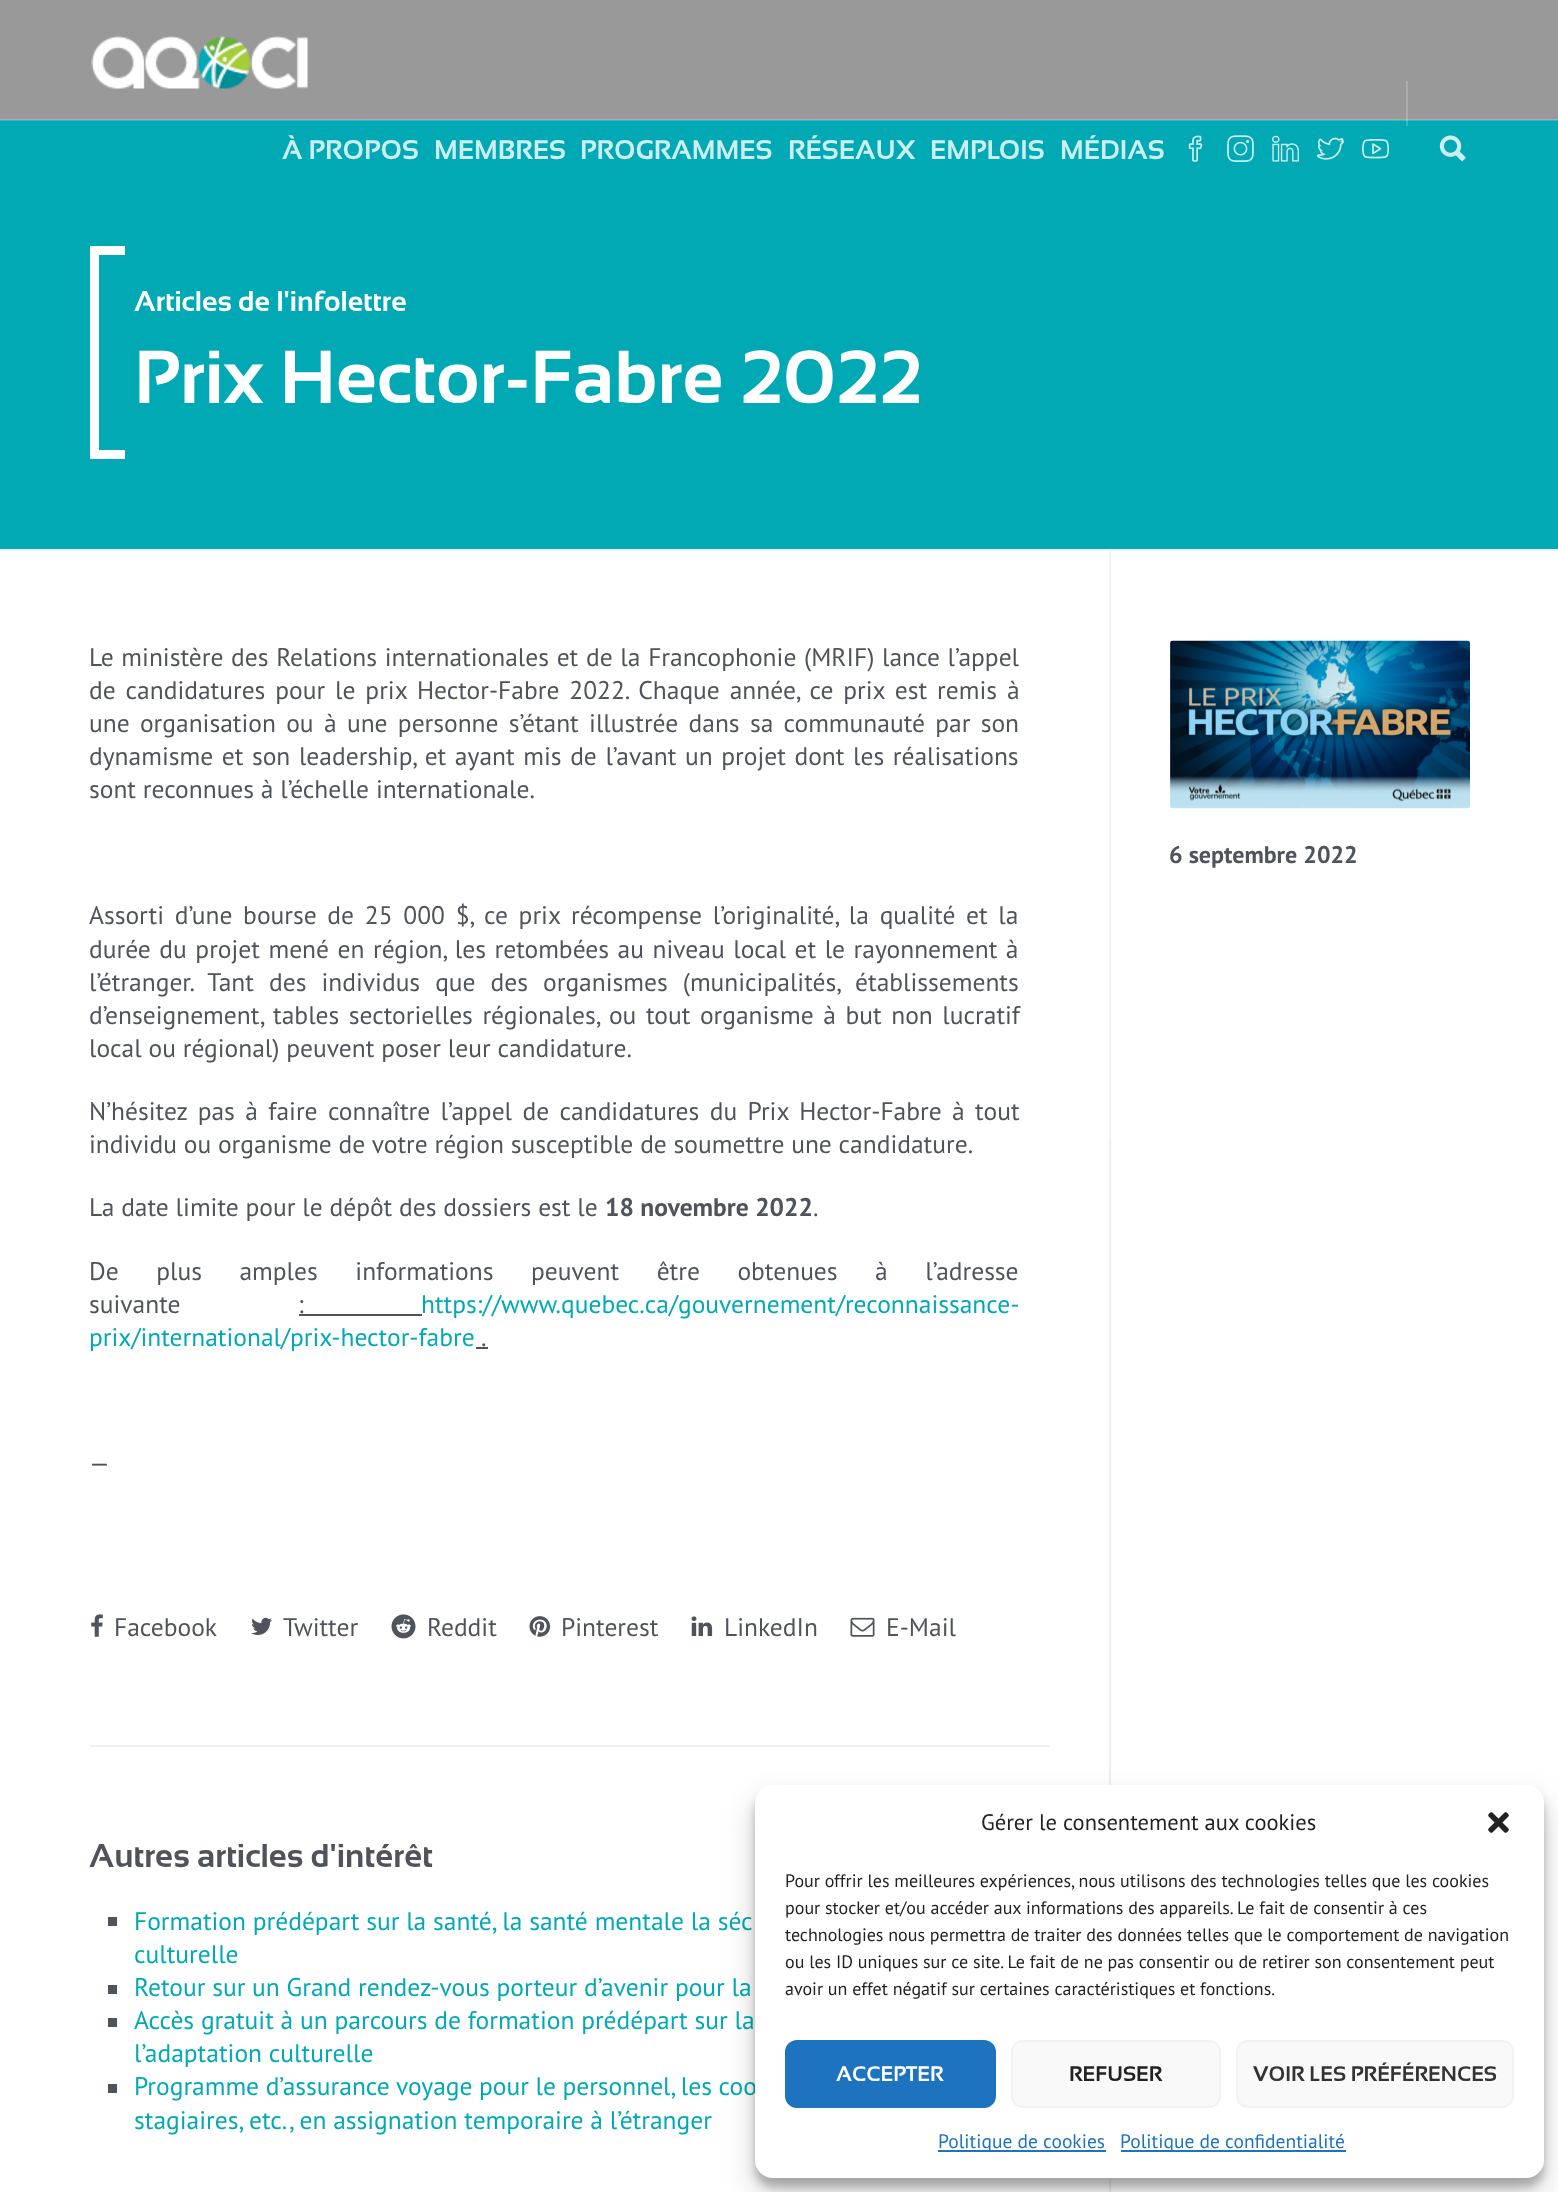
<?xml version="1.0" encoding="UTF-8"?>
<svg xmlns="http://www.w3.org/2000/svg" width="1558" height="2192">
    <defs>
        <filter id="blur1" x="-50%" y="-200%" width="200%" height="500%"><feGaussianBlur stdDeviation="4.5"/></filter>
        <filter id="blur2" x="-50%" y="-200%" width="200%" height="500%"><feGaussianBlur stdDeviation="15"/></filter>
    </defs>
    <rect width="100%" height="100%" fill="#FFFFFF"/>
    <rect x="0" y="0" width="1558" height="119" fill="#999999"/>
    <rect x="1406" y="81" width="2" height="39" fill="#ADADAD"/>
    <rect x="0" y="119" width="1558" height="1" fill="#ADADAD"/>
    <rect x="1406" y="119" width="2" height="1" fill="#BDBDBD"/>
    <image x="91" y="36" width="217" height="53" href="img_01.png"/>
    <rect x="0" y="121" width="1558" height="428" fill="#00A9B4"/>
    <text x="282" y="159" font-family="Sansation" font-size="27" font-weight="700" fill="#CCEEF0">À PROPOS</text>
    <text x="434" y="159" font-family="Sansation" font-size="27" font-weight="700" fill="#CCEEF0">MEMBRES</text>
    <text x="580" y="159" font-family="Sansation" font-size="27" font-weight="700" fill="#CCEEF0">PROGRAMMES</text>
    <text x="788" y="159" font-family="Sansation" font-size="27" font-weight="700" fill="#CCEEF0">RÉSEAUX</text>
    <text x="930" y="159" font-family="Sansation" font-size="27" font-weight="700" fill="#CCEEF0">EMPLOIS</text>
    <text x="1060" y="159" font-family="Sansation" font-size="27" font-weight="700" fill="#CCEEF0">MÉDIAS</text>
    <image x="1188" y="135" width="15" height="27" href="img_02.png"/>
    <image x="1227" y="135" width="27" height="27" href="img_03.png"/>
    <image x="1272" y="135" width="27" height="27" href="img_04.png"/>
    <image x="1317" y="137" width="27" height="23" href="img_05.png"/>
    <image x="1362" y="138" width="28" height="21" href="img_06.png"/>
    <image x="1439" y="135" width="27" height="27" href="img_07.png"/>
    <rect x="1406" y="120" width="2" height="6" fill="#33BAC3"/>
    <rect x="0" y="120" width="1558" height="1" fill="#33BAC3"/>
    <rect x="1406" y="120" width="2" height="1" fill="#5CC8CF"/>
    <rect x="0" y="549" width="1558" height="2" fill="#EFEFEF"/>
    <rect x="99" y="246" width="26" height="9" fill="#FFFFFF"/>
    <rect x="99" y="450" width="26" height="9" fill="#FFFFFF"/>
    <rect x="90" y="246" width="9" height="213" fill="#FFFFFF"/>
    <text x="134" y="311" font-family="Sansation" font-size="28.5" font-weight="700" fill="#FFFFFF">Articles de l'infolettre</text>
    <text x="134" y="403" font-family="Sansation" font-size="75" font-weight="700" fill="#FFFFFF">Prix Hector-Fabre 2022</text>
    <rect x="1109" y="1140" width="2" height="1052" fill="#EFEFEF"/>
    <text font-family="PT Sans" font-size="25.5" fill="#4F535B">
        <tspan x="89" y="666" word-spacing="0.9">Le ministère des Relations internationales et de la Francophonie (MRIF) lance l’appel</tspan>
        <tspan x="89" y="699" word-spacing="3.1">de candidatures pour le prix Hector-Fabre 2022. Chaque année, ce prix est remis à</tspan>
        <tspan x="89" y="732" word-spacing="3.5">une organisation ou à une personne s’étant illustrée dans sa communauté par son</tspan>
        <tspan x="89" y="765" word-spacing="1.8">dynamisme et son leadership, et ayant mis de l’avant un projet dont les réalisations</tspan>
        <tspan x="89" y="798">sont reconnues à l’échelle internationale.</tspan>
    </text>
    <text font-family="PT Sans" font-size="25.5" fill="#4F535B">
        <tspan x="89" y="924" word-spacing="3.9">Assorti d’une bourse de 25 000 $, ce prix récompense l’originalité, la qualité et la</tspan>
        <tspan x="89" y="958" word-spacing="1.75">durée du projet mené en région, les retombées au niveau local et le rayonnement à</tspan>
        <tspan x="89" y="991" word-spacing="8.25">l’étranger. Tant des individus que des organismes (municipalités, établissements</tspan>
        <tspan x="89" y="1024" word-spacing="2.75">d’enseignement, tables sectorielles régionales, ou tout organisme à but non lucratif</tspan>
        <tspan x="89" y="1057">local ou régional) peuvent poser leur candidature.</tspan>
    </text>
    <text font-family="PT Sans" font-size="25.5" fill="#4F535B">
        <tspan x="89" y="1120" word-spacing="3.6">N’hésitez pas à faire connaître l’appel de candidatures du Prix Hector-Fabre à tout</tspan>
        <tspan x="89" y="1153">individu ou organisme de votre région susceptible de soumettre une candidature.</tspan>
    </text>
    <text x="89" y="1216" font-family="PT Sans" font-size="25.5" fill="#4F535B">La date limite pour le dépôt des dossiers est le</text>
    <text x="605" y="1216" font-family="PT Sans" font-size="25.5" font-weight="700" fill="#4F535B">18 novembre 2022</text>
    <text x="813" y="1216" font-family="PT Sans" font-size="25.5" fill="#4F535B">.</text>
    <text font-family="PT Sans" font-size="25.5" fill="#4F535B">
        <tspan x="89" y="1280" word-spacing="30.75">De plus amples informations peuvent être obtenues à l’adresse</tspan>
        <tspan x="89" y="1313">suivante</tspan>
    </text>
    <text x="298" y="1313" font-family="PT Sans" font-size="25.5" fill="#4F535B">:</text>
    <rect x="299" y="1314" width="123" height="2" fill="#4F535B"/>
    <text x="421" y="1313" font-family="PT Sans" font-size="25.5" fill="#00A9B4">https://www.quebec.ca/gouvernement/reconnaissance-</text>
    <text x="89" y="1346" font-family="PT Sans" font-size="25.5" fill="#00A9B4">prix/international/prix-hector-fabre</text>
    <text x="481" y="1346" font-family="PT Sans" font-size="25.5" fill="#4F535B">.</text>
    <rect x="476" y="1347" width="12" height="2" fill="#4F535B"/>
    <text x="89" y="1472" font-family="PT Sans" font-size="25.5" fill="#4F535B">—</text>
    <image x="91" y="1614" width="12" height="23" href="img_08.png"/>
    <text x="114" y="1636" font-family="PT Sans" font-size="25.5" fill="#4F535B">Facebook</text>
    <image x="251" y="1617" width="21" height="18" href="img_09.png"/>
    <text x="283" y="1636" font-family="PT Sans" font-size="25.5" fill="#4F535B">Twitter</text>
    <image x="391" y="1614" width="25" height="25" href="img_10.png"/>
    <text x="427" y="1636" font-family="PT Sans" font-size="25.5" fill="#4F535B">Reddit</text>
    <image x="529" y="1616" width="22" height="21" href="img_11.png"/>
    <text x="561" y="1636" font-family="PT Sans" font-size="25.5" fill="#4F535B">Pinterest</text>
    <image x="691" y="1616" width="22" height="21" href="img_12.png"/>
    <text x="724" y="1636" font-family="PT Sans" font-size="25.5" fill="#4F535B">LinkedIn</text>
    <image x="850" y="1617" width="25" height="20" href="img_13.png"/>
    <text x="886" y="1636" font-family="PT Sans" font-size="25.5" fill="#4F535B">E-Mail</text>
    <rect x="90" y="1745" width="960" height="2" fill="#EFEFEF"/>
    <text x="89" y="1867" font-family="Sansation" font-size="33" font-weight="700" fill="#4F535B">Autres articles d'intérêt</text>
    <rect x="108" y="1917" width="9" height="9" fill="#4F535B"/>
    <text font-family="PT Sans" font-size="25.5" fill="#00A9B4">
        <tspan x="134" y="1930">Formation prédépart sur la santé, la santé mentale la séc</tspan>
        <tspan x="134" y="1963">culturelle</tspan>
    </text>
    <rect x="108" y="1985" width="9" height="9" fill="#4F535B"/>
    <text x="134" y="1996" font-family="PT Sans" font-size="25.5" fill="#00A9B4">Retour sur un Grand rendez-vous porteur d’avenir pour la</text>
    <rect x="108" y="2018" width="9" height="9" fill="#4F535B"/>
    <text font-family="PT Sans" font-size="25.5" fill="#00A9B4">
        <tspan x="134" y="2029">Accès gratuit à un parcours de formation prédépart sur la</tspan>
        <tspan x="134" y="2062">l’adaptation culturelle</tspan>
    </text>
    <rect x="108" y="2084" width="9" height="9" fill="#4F535B"/>
    <text font-family="PT Sans" font-size="25.5" fill="#00A9B4">
        <tspan x="134" y="2095" word-spacing="-0.25">Programme d’assurance voyage pour le personnel, les coo</tspan>
        <tspan x="134" y="2129">stagiaires, etc., en assignation temporaire à l’étranger</tspan>
    </text>
    <rect x="1109" y="551" width="2" height="589" fill="#F2F3F4"/>
    <image x="1170" y="640" width="300" height="169" href="img_14.png"/>
    <text x="1169" y="863" font-family="PT Sans" font-size="24" font-weight="700" fill="#4F535B">6 septembre 2022</text>
    <rect x="755" y="1794" width="789" height="393" rx="18" fill="#000000" fill-opacity="0.23" filter="url(#blur1)"/>
    <rect x="755" y="1800" width="789" height="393" rx="18" fill="#000000" fill-opacity="0.19" filter="url(#blur2)"/>
    <rect x="755" y="1785" width="789" height="393" rx="18" fill="#FFFFFF"/>
    <text x="981" y="1830" font-family="PT Sans" font-size="22.5" fill="#222222">Gérer le consentement aux cookies</text>
    <image x="1488" y="1812" width="21" height="21" href="img_15.png"/>
    <text font-family="PT Sans" font-size="18" fill="#222222">
        <tspan x="785" y="1887">Pour offrir les meilleures expériences, nous utilisons des technologies telles que les cookies</tspan>
        <tspan x="785" y="1914">pour stocker et/ou accéder aux informations des appareils. Le fait de consentir à ces</tspan>
        <tspan x="785" y="1941">technologies nous permettra de traiter des données telles que le comportement de navigation</tspan>
        <tspan x="785" y="1968">ou les ID uniques sur ce site. Le fait de ne pas consentir ou de retirer son consentement peut</tspan>
        <tspan x="785" y="1995">avoir un effet négatif sur certaines caractéristiques et fonctions.</tspan>
    </text>
    <rect x="786" y="2041" width="209" height="66" rx="11" fill="#1E73BE" stroke="#1E73BE" stroke-width="2"/>
    <text x="836" y="2081" font-family="Sansation" font-size="21" font-weight="700" fill="#FFFFFF">ACCEPTER</text>
    <rect x="1012" y="2041" width="208" height="66" rx="11" fill="#F9F9F9" stroke="#F2F2F2" stroke-width="2"/>
    <text x="1069" y="2081" font-family="Sansation" font-size="21" font-weight="700" fill="#222222">REFUSER</text>
    <rect x="1237" y="2041" width="276" height="66" rx="11" fill="#F9F9F9" stroke="#F2F2F2" stroke-width="2"/>
    <text x="1253" y="2081" font-family="Sansation" font-size="21" font-weight="700" fill="#333333">VOIR LES PRÉFÉRENCES</text>
    <rect x="938" y="2150" width="168" height="2" fill="#1E73BE"/>
    <text x="938" y="2148" font-family="PT Sans" font-size="19.5" fill="#1E73BE">Politique de cookies</text>
    <rect x="1121" y="2150" width="225" height="2" fill="#1E73BE"/>
    <text x="1120" y="2148" font-family="PT Sans" font-size="19.5" fill="#1E73BE">Politique de confidentialité</text>
</svg>
